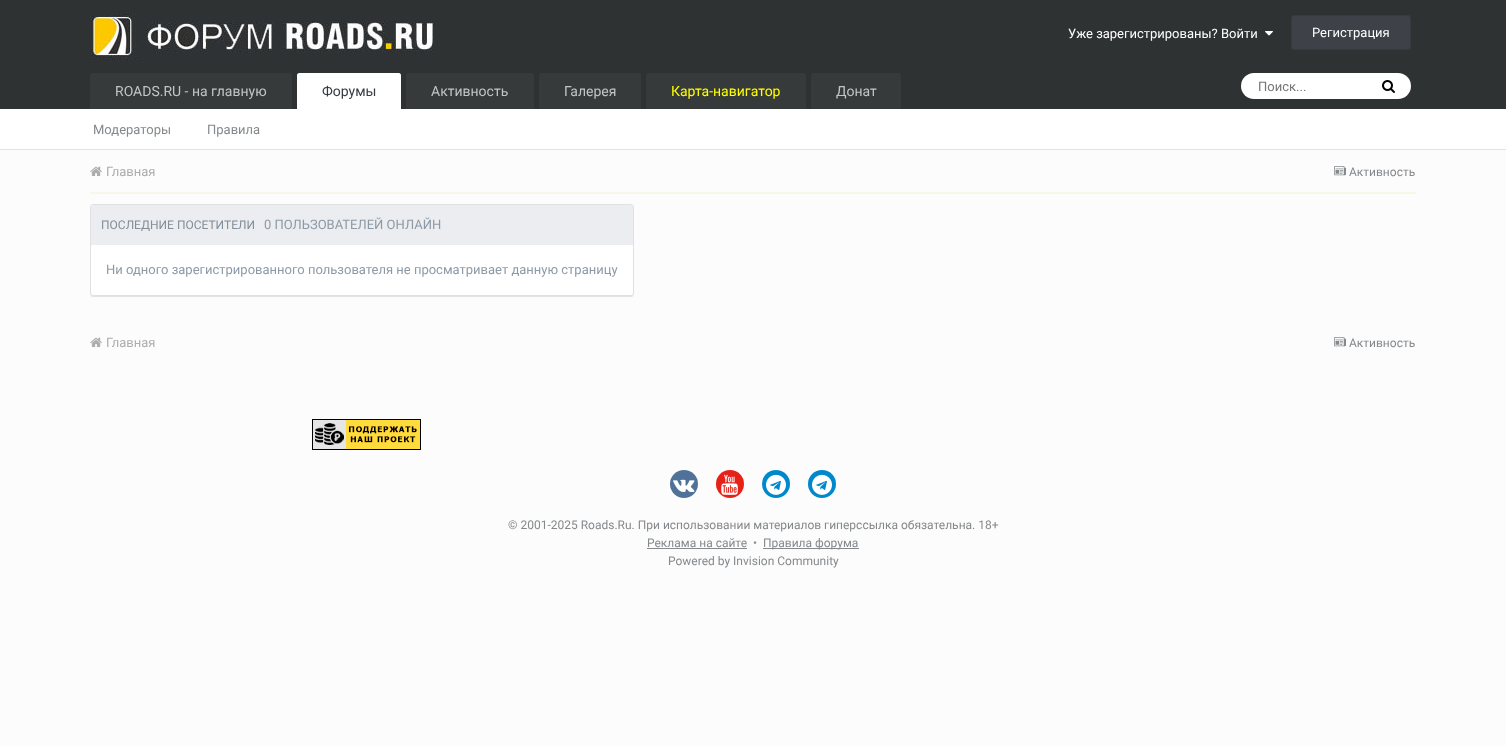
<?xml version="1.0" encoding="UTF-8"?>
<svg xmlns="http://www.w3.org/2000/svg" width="1506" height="746">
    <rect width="100%" height="100%" fill="#FCFCFC"/>
    <rect x="0" y="149" width="1506" height="1" fill="#E3E3E3"/>
    <rect x="0" y="0" width="1506" height="109" fill="#2E3233"/>
    <image x="90" y="13" width="344" height="48" href="img_01.png"/>
    <text x="1068" y="38" font-family="Roboto" font-size="13" fill="#FFFFFF">Уже зарегистрированы? Войти</text>
    <image x="1265" y="31" width="8" height="5" href="img_02.png"/>
    <rect x="1291" y="15" width="120" height="35" rx="3" fill="#3E4148"/>
    <rect x="1291.5" y="15.5" width="119" height="34" rx="2.5" fill="none" stroke="#000000" stroke-opacity="0.1"/>
    <text x="1312" y="37" font-family="Roboto" font-size="13" fill="#FFFFFF">Регистрация</text>
    <rect x="0" y="109" width="1506" height="40" fill="#FFFFFF"/>
    <path d="M 299 73 H 399 C 400 73 401 74 401 75 V 109 H 297 V 75 C 297 74 298 73 299 73 Z" fill="#FFFFFF"/>
    <text x="322" y="96" font-family="Roboto" font-size="14" fill="#353C41">Форумы</text>
    <text x="93" y="134" font-family="Roboto" font-size="13" fill="#85898C">Модераторы</text>
    <text x="207" y="134" font-family="Roboto" font-size="13" fill="#85898C">Правила</text>
    <path d="M 92 73 H 290 C 291 73 292 74 292 75 V 109 H 90 V 75 C 90 74 91 73 92 73 Z" fill="#363A3B"/>
    <text x="115" y="96" font-family="Roboto" font-size="14" fill="#C3C4C4">ROADS.RU - на главную</text>
    <path d="M 408 73 H 532 C 533 73 534 74 534 75 V 109 H 406 V 75 C 406 74 407 73 408 73 Z" fill="#363A3B"/>
    <text x="431" y="96" font-family="Roboto" font-size="14" fill="#C3C4C4">Активность</text>
    <path d="M 541 73 H 639 C 640 73 641 74 641 75 V 109 H 539 V 75 C 539 74 540 73 541 73 Z" fill="#363A3B"/>
    <text x="564" y="96" font-family="Roboto" font-size="14" fill="#C3C4C4">Галерея</text>
    <path d="M 648 73 H 804 C 805 73 806 74 806 75 V 109 H 646 V 75 C 646 74 647 73 648 73 Z" fill="#363A3B"/>
    <text x="671" y="96" font-family="Roboto" font-size="14" fill="#FFFF00">Карта-навигатор</text>
    <path d="M 813 73 H 899 C 900 73 901 74 901 75 V 109 H 811 V 75 C 811 74 812 73 813 73 Z" fill="#363A3B"/>
    <text x="836" y="96" font-family="Roboto" font-size="14" fill="#C3C4C4">Донат</text>
    <rect x="1241" y="73" width="170" height="26" rx="13" fill="#FFFFFF"/>
    <text x="1258" y="91" font-family="Roboto" font-size="13" fill="#757575">Поиск...</text>
    <image x="1382" y="80" width="13" height="13" href="img_03.png"/>
    <image x="90" y="166" width="12" height="10" href="img_04.png"/>
    <text x="106" y="176" font-family="Roboto" font-size="13" fill="#ADADAD">Главная</text>
    <image x="1334" y="166" width="12" height="10" href="img_05.png"/>
    <text x="1349" y="176" font-family="Roboto" font-size="12" fill="#85898C">Активность</text>
    <rect x="90" y="192" width="1326" height="2" fill="#F7F6E7"/>
    <path d="M 90 293 V 294 C 90 296 91 297 93 297 H 631 C 633 297 634 296 634 294 V 293 C 634 295 633 296 631 296 H 93 C 91 296 90 295 90 293 Z" fill="#E3E3E3"/>
    <rect x="90.5" y="204.5" width="543" height="91" rx="2.5" fill="#FFFFFF" stroke="#E0E0E0"/>
    <path d="M 93 205 H 631 C 632 205 633 206 633 207 V 245 H 91 V 207 C 91 206 92 205 93 205 Z" fill="#EBEDF0"/>
    <text x="101" y="229" font-family="Roboto" font-size="12" fill="#828E99">ПОСЛЕДНИЕ ПОСЕТИТЕЛИ</text>
    <text x="264" y="229" font-family="Roboto" font-size="13" fill="#8D9AA6">0 ПОЛЬЗОВАТЕЛЕЙ ОНЛАЙН</text>
    <text x="106" y="274" font-family="Roboto" font-size="13" fill="#8D9AA6">Ни одного зарегистрированного пользователя не просматривает данную страницу</text>
    <image x="90" y="337" width="12" height="10" href="img_04.png"/>
    <text x="106" y="347" font-family="Roboto" font-size="13" fill="#ADADAD">Главная</text>
    <image x="1334" y="337" width="12" height="10" href="img_05.png"/>
    <text x="1349" y="347" font-family="Roboto" font-size="12" fill="#85898C">Активность</text>
    <image x="312" y="419" width="109" height="31" href="img_06.png"/>
    <circle cx="684" cy="484" r="14" fill="#507299"/>
    <image x="673" y="479" width="22" height="13" href="img_07.png"/>
    <circle cx="730" cy="484" r="14" fill="#E62117"/>
    <image x="721" y="474" width="17" height="21" href="img_08.png"/>
    <circle cx="776" cy="484" r="14" fill="#0088CC"/>
    <image x="766" y="474" width="20" height="21" href="img_09.png"/>
    <circle cx="822" cy="484" r="14" fill="#0088CC"/>
    <image x="812" y="474" width="20" height="21" href="img_09.png"/>
    <text x="508" y="529" font-family="Roboto" font-size="12" fill="#85898C">© 2001-2025 Roads.Ru. При использовании материалов гиперссылка обязательна. 18+</text>
    <text x="647" y="547" font-family="Roboto" font-size="12" fill="#85898C">Реклама на сайте</text>
    <rect x="647" y="548" width="100" height="1" fill="#85898C"/>
    <text x="753" y="547" font-family="Roboto" font-size="12" fill="#85898C">•</text>
    <rect x="763" y="548" width="96" height="1" fill="#85898C"/>
    <text x="763" y="547" font-family="Roboto" font-size="12" fill="#85898C">Правила форума</text>
    <text x="668" y="565" font-family="Roboto" font-size="12" fill="#85898C">Powered by Invision Community</text>
</svg>
